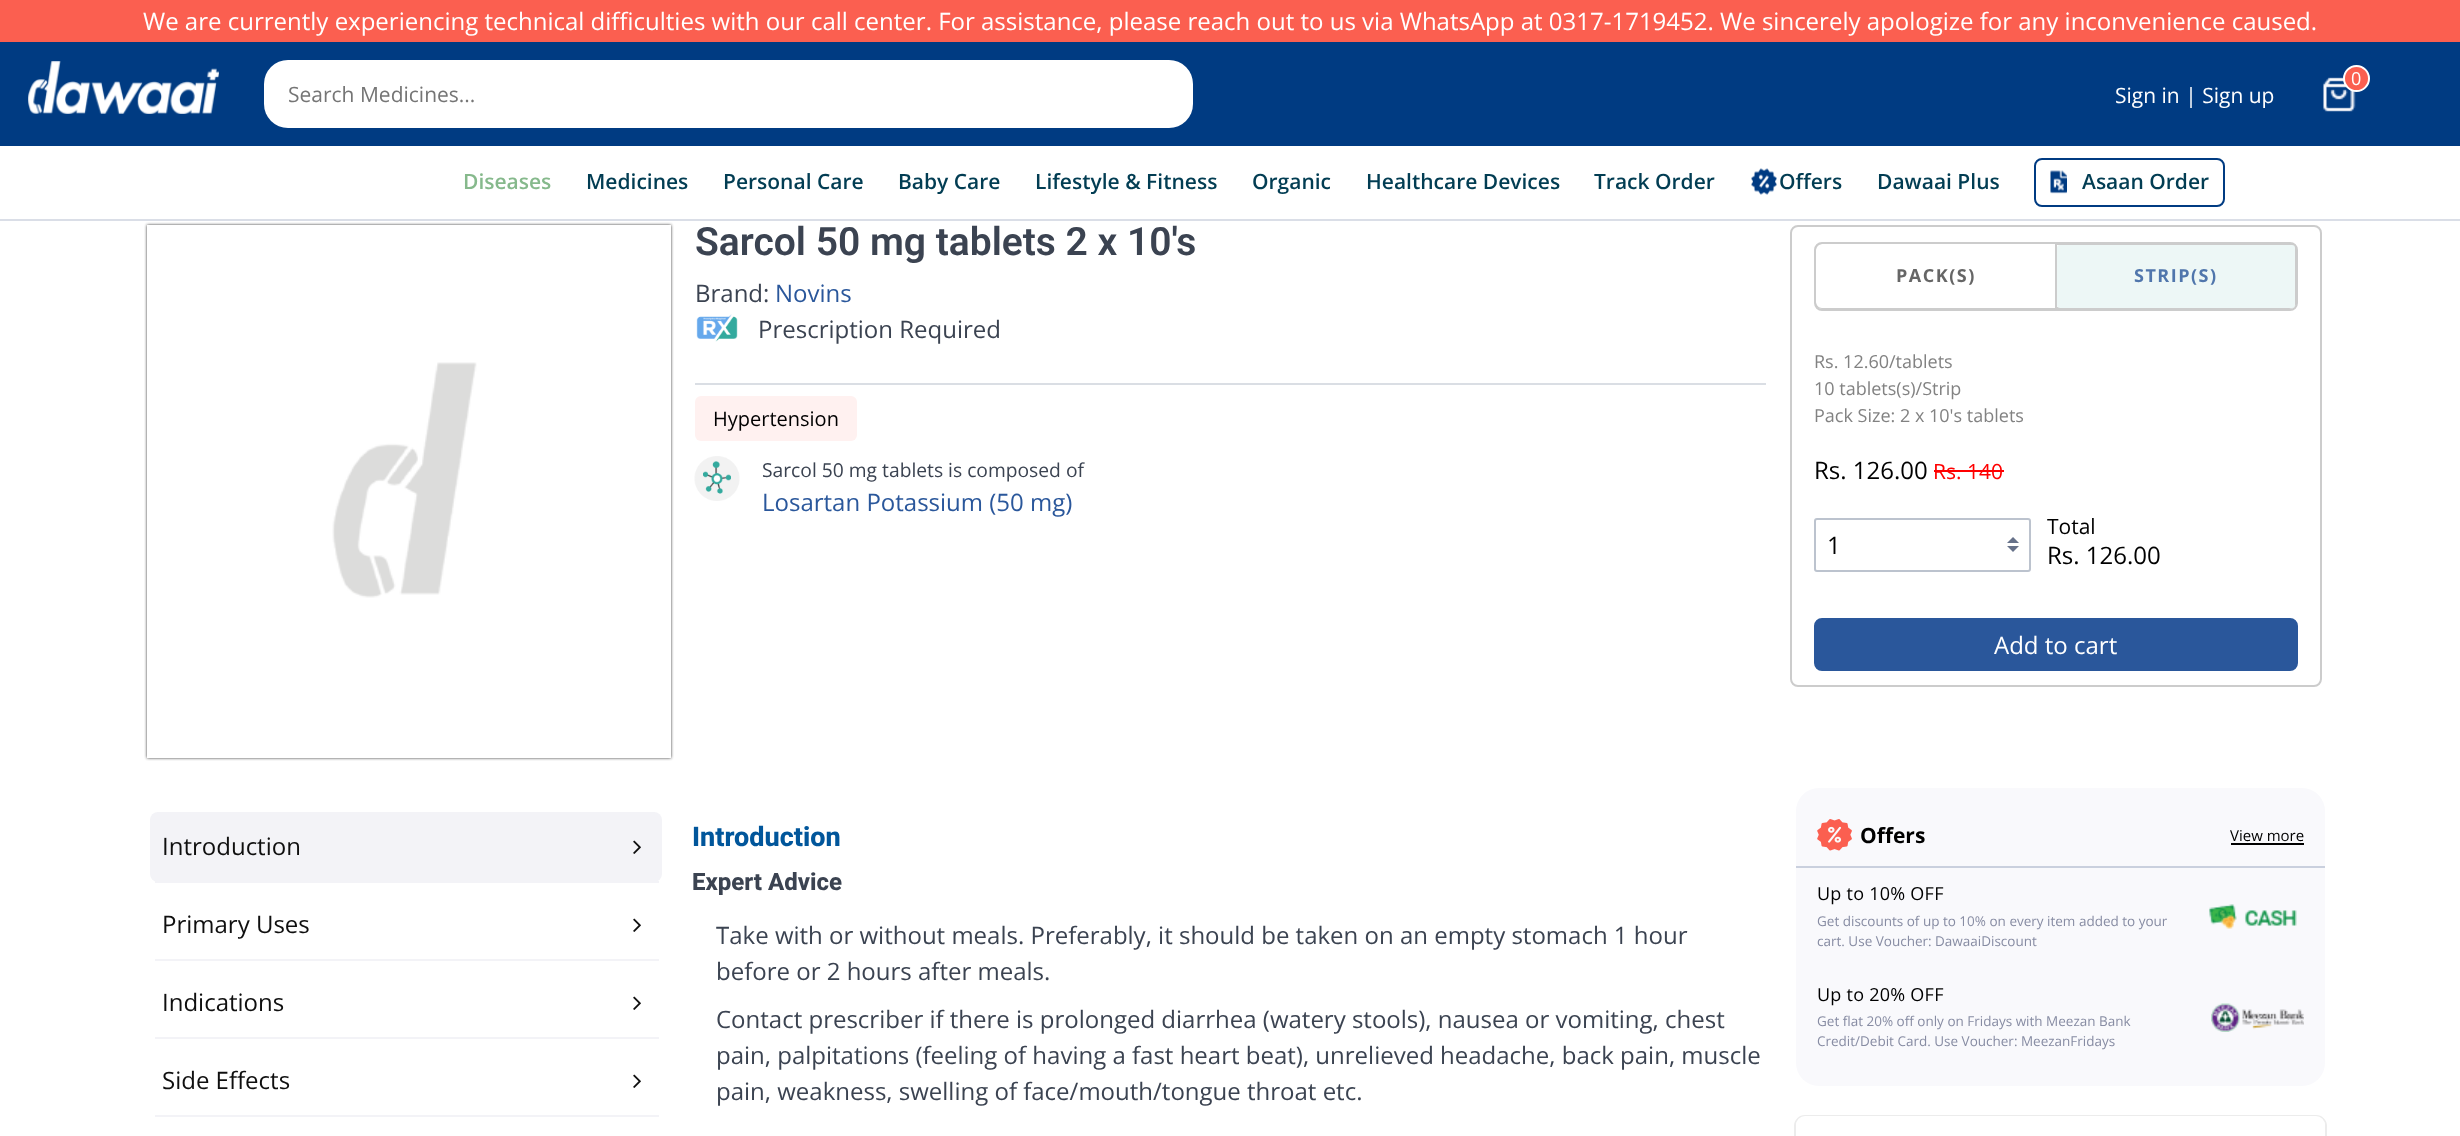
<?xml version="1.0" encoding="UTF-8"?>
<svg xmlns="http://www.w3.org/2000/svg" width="2460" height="1136">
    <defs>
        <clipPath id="clip1"><path d="M 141 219 H 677 V 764 H 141 Z M 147 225 H 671 V 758 H 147 Z" clip-rule="evenodd"/></clipPath>
        <filter id="blur1" x="-50%" y="-200%" width="200%" height="500%"><feGaussianBlur stdDeviation="1.5"/></filter>
    </defs>
    <rect width="100%" height="100%" fill="#FFFFFF"/>
    <rect x="0" y="0" width="2460" height="42" fill="#FB5F50"/>
    <text x="143" y="30" font-family="Open Sans" font-size="24" fill="#FFFFFF">We are currently experiencing technical difficulties with our call center. For assistance, please reach out to us via WhatsApp at 0317-1719452. We sincerely apologize for any inconvenience caused.</text>
    <rect x="0" y="42" width="2460" height="104" fill="#003B82"/>
    <image x="28" y="61" width="191" height="53" href="img_01.png"/>
    <rect x="264" y="60" width="929" height="68" rx="24" fill="#FFFFFF"/>
    <text x="288" y="102" font-family="Open Sans" font-size="21" fill="#757575">Search Medicines...</text>
    <image x="2323" y="77" width="33" height="35" href="img_02.png"/>
    <circle cx="2356.5" cy="78.5" r="12.5" fill="#FB5F50" stroke="#FFFFFF" stroke-width="2"/>
    <text x="2351" y="85" font-family="Open Sans" font-size="18" fill="#FFFFFF">0</text>
    <text x="2115" y="103" font-family="Open Sans" font-size="21" fill="#FFFFFF">Sign in | Sign up</text>
    <g clip-path="url(#clip1)">
        <rect x="147" y="225" width="524" height="533" fill="#333333" filter="url(#blur1)"/>
    </g>
    <rect x="0" y="219" width="2460" height="2" fill="#DADEE7"/>
    <text x="463" y="189" font-family="Open Sans" font-size="21" font-weight="600" fill="#86B98C">Diseases</text>
    <text x="586" y="189" font-family="Open Sans" font-size="21" font-weight="600" fill="#023D53">Medicines</text>
    <text x="723" y="189" font-family="Open Sans" font-size="21" font-weight="600" fill="#023D53">Personal Care</text>
    <text x="898" y="189" font-family="Open Sans" font-size="21" font-weight="600" fill="#023D53">Baby Care</text>
    <text x="1035" y="189" font-family="Open Sans" font-size="21" font-weight="600" fill="#023D53">Lifestyle &amp; Fitness</text>
    <text x="1252" y="189" font-family="Open Sans" font-size="21" font-weight="600" fill="#023D53">Organic</text>
    <text x="1366" y="189" font-family="Open Sans" font-size="21" font-weight="600" fill="#023D53">Healthcare Devices</text>
    <text x="1594" y="189" font-family="Open Sans" font-size="21" font-weight="600" fill="#023D53">Track Order</text>
    <image x="1751" y="168" width="26" height="27" href="img_03.png"/>
    <text x="1779" y="189" font-family="Open Sans" font-size="21" font-weight="600" fill="#023D53">Offers</text>
    <text x="1877" y="189" font-family="Open Sans" font-size="21" font-weight="600" fill="#023D53">Dawaai Plus</text>
    <rect x="2035" y="159" width="189" height="47" rx="7" fill="none" stroke="#003B82" stroke-width="2"/>
    <image x="2050" y="170" width="17" height="24" href="img_04.png"/>
    <text x="2082" y="189" font-family="Open Sans" font-size="21" font-weight="600" fill="#023D53">Asaan Order</text>
    <image x="332" y="225" width="339" height="524" href="img_05.png"/>
    <text x="695" y="255" font-family="Roboto" font-size="39" font-weight="600" fill="#3B4351">Sarcol 50 mg tablets 2 x 10's</text>
    <text x="695" y="302" font-family="Open Sans" font-size="24" fill="#3B4351">Brand:</text>
    <text x="775" y="302" font-family="Open Sans" font-size="24" fill="#2A579B">Novins</text>
    <image x="696" y="314" width="42" height="28" href="img_06.png"/>
    <text x="758" y="338" font-family="Open Sans" font-size="24" fill="#3B4351">Prescription Required</text>
    <rect x="695" y="383" width="1071" height="2" fill="#DADEE4"/>
    <rect x="695" y="396" width="162" height="45" rx="6" fill="#FFF1F0"/>
    <text x="713" y="426" font-family="Open Sans" font-size="20" fill="#000000">Hypertension</text>
    <image x="694" y="456" width="46" height="45" href="img_07.png"/>
    <text x="762" y="477" font-family="Open Sans" font-size="19.25" fill="#3B4351">Sarcol 50 mg tablets is composed of</text>
    <text x="762" y="511" font-family="Open Sans" font-size="24" fill="#2A579B">Losartan Potassium (50 mg)</text>
    <rect x="1791" y="226" width="530" height="460" rx="7" fill="none" stroke="#CCCCCC" stroke-width="2"/>
    <rect x="1815" y="243" width="482" height="67" rx="7" fill="none" stroke="#CCCCCC" stroke-width="2"/>
    <path d="M 1822 243 H 2055 V 309 H 1822 C 1818 309 1815 306 1815 302 V 250 C 1815 246 1818 243 1822 243 Z M 1822 244 H 2055 V 308 H 1822 C 1819 308 1816 305 1816 302 V 250 C 1816 247 1819 244 1822 244 Z" fill="#CCCCCC" fill-rule="evenodd"/>
    <text x="1896" y="282" font-family="Open Sans" font-size="18" font-weight="700" letter-spacing="1.5" fill="#666666">PACK(S)</text>
    <path d="M 2056 244 H 2289 C 2293 244 2296 247 2296 251 V 301 C 2296 305 2293 308 2289 308 H 2056 Z" fill="none" stroke="#CCCCCC" stroke-width="2"/>
    <rect x="2057" y="245" width="238" height="63" rx="3" fill="#EDF7F6"/>
    <text x="2134" y="282" font-family="Open Sans" font-size="18" font-weight="700" letter-spacing="1.5" fill="#5076AC">STRIP(S)</text>
    <text font-family="Open Sans" font-size="18" fill="#828282">
        <tspan x="1814" y="368">Rs. 12.60/tablets</tspan>
        <tspan x="1814" y="395">10 tablets(s)/Strip</tspan>
        <tspan x="1814" y="422">Pack Size: 2 x 10's tablets</tspan>
    </text>
    <text x="1814" y="479" font-family="Open Sans" font-size="24" fill="#000000">Rs. 126.00</text>
    <text x="1933" y="479" font-family="Open Sans" font-size="21" fill="#FF0000">Rs. 140</text>
    <rect x="1934" y="470" width="70" height="2" fill="#FF0000"/>
    <image x="2007" y="537" width="12" height="15" href="img_08.png"/>
    <rect x="1815" y="519" width="215" height="52" rx="2" fill="none" stroke="#BCC3CE" stroke-width="2"/>
    <text x="1827" y="554" font-family="Open Sans" font-size="24" fill="#000000">1</text>
    <text x="2047" y="534" font-family="Open Sans" font-size="21" fill="#000000">Total</text>
    <text x="2047" y="564" font-family="Open Sans" font-size="24" fill="#000000">Rs. 126.00</text>
    <rect x="1815" y="619" width="482" height="51" rx="7" fill="#2A579B" stroke="#2A579B" stroke-width="2"/>
    <text x="1994" y="654" font-family="Open Sans" font-size="24" fill="#FFFFFF">Add to cart</text>
    <rect x="150" y="812" width="512" height="70" rx="8" fill="#F3F3F7"/>
    <rect x="155" y="881" width="504" height="2" fill="#F3F3F7"/>
    <text x="162" y="855" font-family="Open Sans" font-size="24" fill="#0F0F0F">Introduction</text>
    <image x="633" y="840" width="8" height="14" href="img_09.png"/>
    <rect x="155" y="959" width="504" height="2" fill="#F3F3F7"/>
    <text x="162" y="933" font-family="Open Sans" font-size="24" fill="#0F0F0F">Primary Uses</text>
    <image x="633" y="918" width="8" height="14" href="img_10.png"/>
    <rect x="155" y="1037" width="504" height="2" fill="#F3F3F7"/>
    <text x="162" y="1011" font-family="Open Sans" font-size="24" fill="#0F0F0F">Indications</text>
    <image x="633" y="996" width="8" height="14" href="img_10.png"/>
    <rect x="155" y="1115" width="504" height="2" fill="#F3F3F7"/>
    <text x="162" y="1089" font-family="Open Sans" font-size="24" fill="#0F0F0F">Side Effects</text>
    <image x="633" y="1074" width="8" height="14" href="img_10.png"/>
    <text x="692" y="846" font-family="Roboto" font-size="27" font-weight="800" fill="#01569B">Introduction</text>
    <text x="692" y="890" font-family="Roboto" font-size="24" font-weight="800" fill="#3B4351">Expert Advice</text>
    <text font-family="Open Sans" font-size="24" fill="#3B4351">
        <tspan x="716" y="944">Take with or without meals. Preferably, it should be taken on an empty stomach 1 hour</tspan>
        <tspan x="716" y="980">before or 2 hours after meals.</tspan>
    </text>
    <text font-family="Open Sans" font-size="24" fill="#3B4351">
        <tspan x="716" y="1028">Contact prescriber if there is prolonged diarrhea (watery stools), nausea or vomiting, chest</tspan>
        <tspan x="716" y="1064">pain, palpitations (feeling of having a fast heart beat), unrelieved headache, back pain, muscle</tspan>
        <tspan x="716" y="1100">pain, weakness, swelling of face/mouth/tongue throat etc.</tspan>
    </text>
    <rect x="1796" y="788" width="529" height="298" rx="23" fill="#F9F9FC"/>
    <rect x="1796" y="866" width="529" height="2" fill="#CAD0DE"/>
    <image x="1817" y="819" width="35" height="32" href="img_11.png"/>
    <text x="1860" y="843" font-family="Open Sans" font-size="21" font-weight="700" fill="#000000">Offers</text>
    <text x="2230" y="841" font-family="Open Sans" font-size="15" fill="#000000">View more</text>
    <rect x="2231" y="843" width="73" height="2" fill="#000000"/>
    <text x="1817" y="900" font-family="Open Sans" font-size="18" letter-spacing="0.25" fill="#000000">Up to 10% OFF</text>
    <text font-family="Open Sans" font-size="13.5" fill="#878CA3">
        <tspan x="1817" y="926">Get discounts of up to 10% on every item added to your</tspan>
        <tspan x="1817" y="946">cart. Use Voucher: DawaaiDiscount</tspan>
    </text>
    <image x="2209" y="904" width="88" height="25" href="img_12.png"/>
    <text x="1817" y="1001" font-family="Open Sans" font-size="18" letter-spacing="0.25" fill="#000000">Up to 20% OFF</text>
    <text font-family="Open Sans" font-size="13.5" fill="#878CA3">
        <tspan x="1817" y="1026">Get flat 20% off only on Fridays with Meezan Bank</tspan>
        <tspan x="1817" y="1046">Credit/Debit Card. Use Voucher: MeezanFridays</tspan>
    </text>
    <image x="2211" y="1003" width="93" height="29" href="img_13.png"/>
    <rect x="1795" y="1116" width="531" height="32" rx="10" fill="none" stroke="#ECECEC" stroke-width="2"/>
    <rect x="1796" y="1116" width="529" height="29" rx="9" fill="#FFFFFF"/>
</svg>
